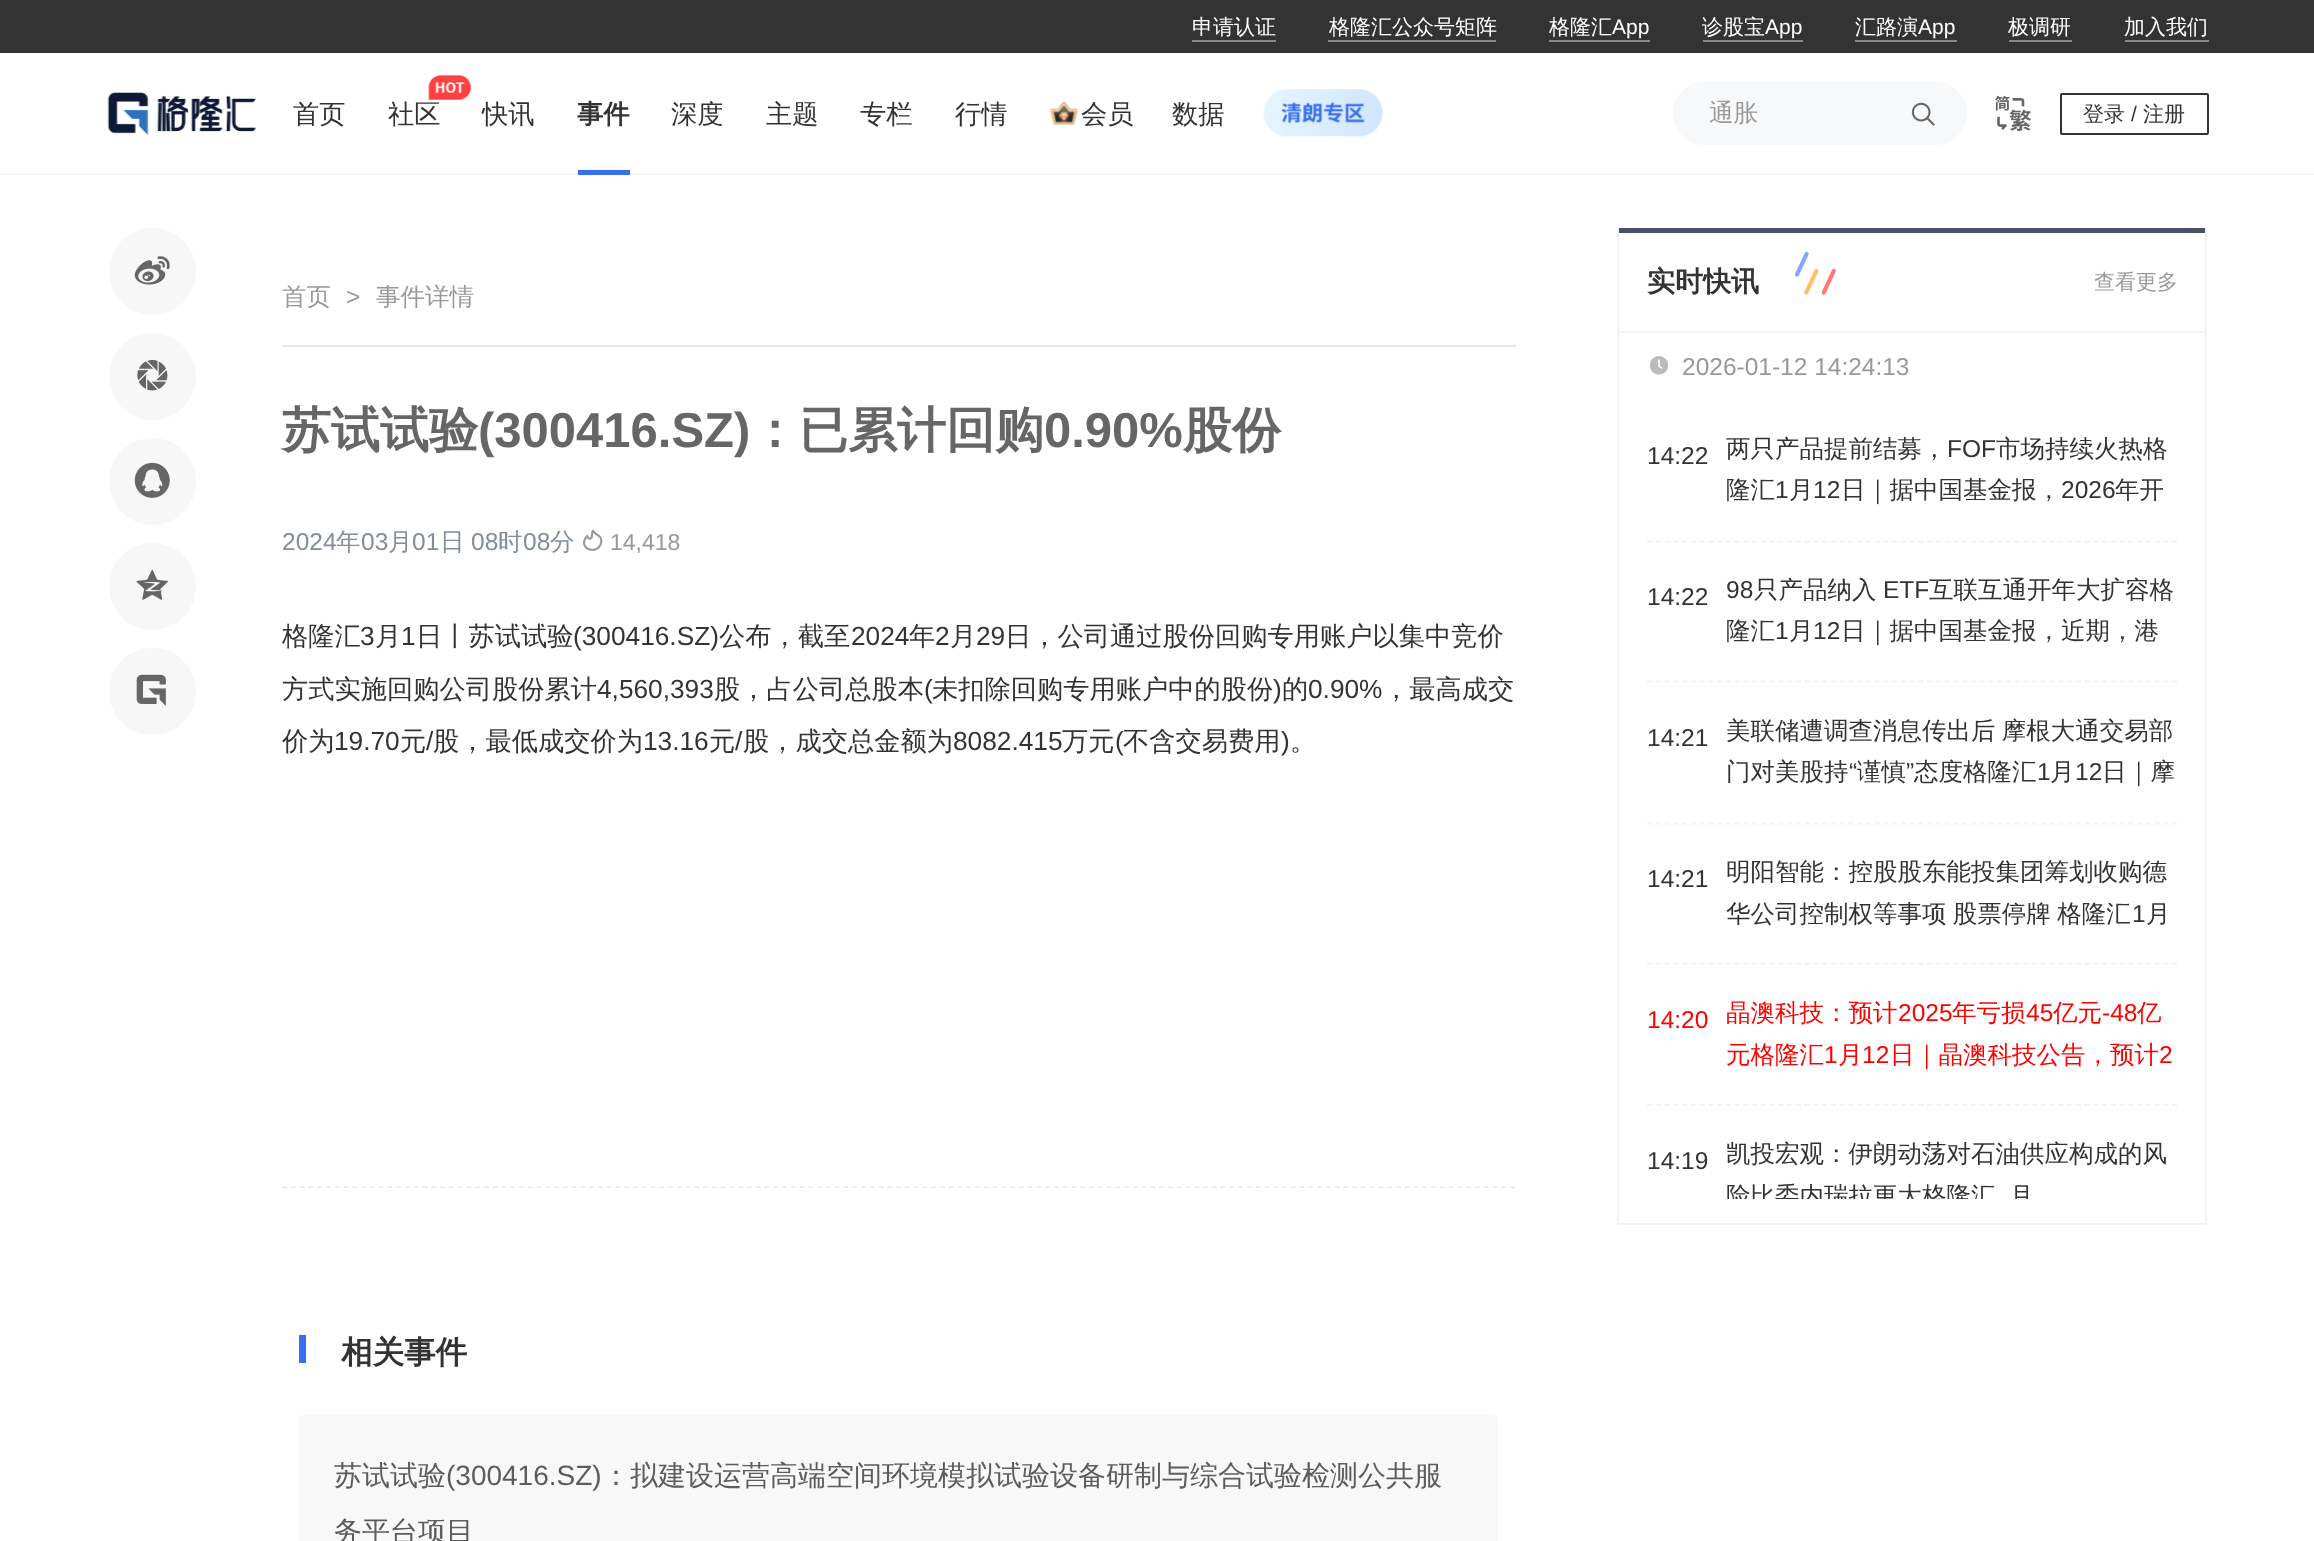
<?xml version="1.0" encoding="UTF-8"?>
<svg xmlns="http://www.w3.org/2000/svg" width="2314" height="1541">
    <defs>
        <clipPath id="clip1"><rect x="1708" y="1134" width="469" height="65"/></clipPath>
    </defs>
    <rect width="100%" height="100%" fill="#FFFFFF"/>
    <rect x="0" y="0" width="2314" height="53" fill="#333333"/>
    <text x="1192" y="34" font-family="WenQuanYi Zen Hei" font-size="21" font-weight="500" fill="#FFFFFF">申请认证</text>
    <rect x="1192" y="40" width="84" height="2" fill="#878787"/>
    <text x="1329" y="34" font-family="WenQuanYi Zen Hei" font-size="21" font-weight="500" fill="#FFFFFF">格隆汇公众号矩阵</text>
    <rect x="1328" y="40" width="168" height="2" fill="#878787"/>
    <text x="1549" y="34" font-family="WenQuanYi Zen Hei" font-size="21" font-weight="500" fill="#FFFFFF">格隆汇</text>
    <text x="1612" y="34" font-family="Liberation Sans" font-size="21" fill="#FFFFFF">App</text>
    <rect x="1549" y="40" width="101" height="2" fill="#878787"/>
    <text x="1702" y="34" font-family="WenQuanYi Zen Hei" font-size="21" font-weight="500" fill="#FFFFFF">诊股宝</text>
    <text x="1765" y="34" font-family="Liberation Sans" font-size="21" fill="#FFFFFF">App</text>
    <rect x="1703" y="40" width="100" height="2" fill="#878787"/>
    <text x="1855" y="34" font-family="WenQuanYi Zen Hei" font-size="21" font-weight="500" fill="#FFFFFF">汇路演</text>
    <text x="1918" y="34" font-family="Liberation Sans" font-size="21" fill="#FFFFFF">App</text>
    <rect x="1855" y="40" width="102" height="2" fill="#878787"/>
    <text x="2008" y="34" font-family="WenQuanYi Zen Hei" font-size="21" font-weight="500" fill="#FFFFFF">极调研</text>
    <rect x="2009" y="40" width="63" height="2" fill="#878787"/>
    <text x="2124" y="34" font-family="WenQuanYi Zen Hei" font-size="21" font-weight="500" fill="#FFFFFF">加入我们</text>
    <rect x="2125" y="40" width="84" height="2" fill="#878787"/>
    <rect x="0" y="173" width="2314" height="2" fill="#F6F6F6"/>
    <image x="107" y="92" width="149" height="43" href="img_01.png"/>
    <text x="293" y="123" font-family="WenQuanYi Zen Hei" font-size="26.25" font-weight="500" fill="#333333">首页</text>
    <image x="427" y="75" width="45" height="25" href="img_02.png"/>
    <text x="388" y="123" font-family="WenQuanYi Zen Hei" font-size="26.25" font-weight="500" fill="#333333">社区</text>
    <text x="482" y="123" font-family="WenQuanYi Zen Hei" font-size="26.25" font-weight="500" fill="#333333">快讯</text>
    <text x="577" y="123" font-family="WenQuanYi Zen Hei" font-size="26.25" font-weight="700" fill="#333333">事件</text>
    <rect x="578" y="170" width="52" height="5" fill="#386FF2"/>
    <text x="671" y="123" font-family="WenQuanYi Zen Hei" font-size="26.25" font-weight="500" fill="#333333">深度</text>
    <text x="766" y="123" font-family="WenQuanYi Zen Hei" font-size="26.25" font-weight="500" fill="#333333">主题</text>
    <text x="860" y="123" font-family="WenQuanYi Zen Hei" font-size="26.25" font-weight="500" fill="#333333">专栏</text>
    <text x="955" y="123" font-family="WenQuanYi Zen Hei" font-size="26.25" font-weight="500" fill="#333333">行情</text>
    <image x="1049" y="102" width="30" height="24" href="img_03.png"/>
    <text x="1081" y="123" font-family="WenQuanYi Zen Hei" font-size="26.25" font-weight="500" fill="#333333">会员</text>
    <text x="1172" y="123" font-family="WenQuanYi Zen Hei" font-size="26.25" font-weight="500" fill="#333333">数据</text>
    <image x="1263" y="89" width="120" height="48" href="img_04.png"/>
    <rect x="1673" y="82" width="294" height="63" rx="31.5" fill="#F7F8F9"/>
    <text x="1709" y="121" font-family="WenQuanYi Zen Hei" font-size="24.5" font-weight="500" fill="#999999">通胀</text>
    <image x="1911" y="102" width="24" height="24" href="img_05.png"/>
    <image x="1995" y="95" width="37" height="36" href="img_06.png"/>
    <rect x="2061" y="94" width="147" height="40" rx="1" fill="none" stroke="#333333" stroke-width="2"/>
    <text x="2083" y="121" font-family="WenQuanYi Zen Hei" font-size="21" font-weight="500" fill="#333333">登录</text>
    <text x="2131" y="121" font-family="Liberation Sans" font-size="21" fill="#333333">/</text>
    <text x="2143" y="121" font-family="WenQuanYi Zen Hei" font-size="21" font-weight="500" fill="#333333">注册</text>
    <circle cx="152.5" cy="271.5" r="43.5" fill="#F7F7F7"/>
    <image x="134" y="256" width="36" height="29" href="img_07.png"/>
    <circle cx="152.5" cy="376.5" r="43.5" fill="#F7F7F7"/>
    <image x="137" y="360" width="31" height="31" href="img_08.png"/>
    <circle cx="152.5" cy="481.5" r="43.5" fill="#F7F7F7"/>
    <image x="134" y="462" width="36" height="36" href="img_09.png"/>
    <circle cx="152.5" cy="586.5" r="43.5" fill="#F7F7F7"/>
    <image x="136" y="569" width="32" height="31" href="img_10.png"/>
    <circle cx="152.5" cy="691.5" r="43.5" fill="#F7F7F7"/>
    <image x="136" y="674" width="30" height="32" href="img_11.png"/>
    <rect x="282" y="345" width="1234" height="2" fill="#E8E8E8"/>
    <text x="282" y="305" font-family="WenQuanYi Zen Hei" font-size="24.5" font-weight="500" fill="#999999">首页</text>
    <text x="346" y="305" font-family="Liberation Sans" font-size="24.5" fill="#999999">&gt;</text>
    <text x="376" y="305" font-family="WenQuanYi Zen Hei" font-size="24.5" font-weight="500" fill="#999999">事件详情</text>
    <text x="282" y="447" font-family="WenQuanYi Zen Hei" font-size="49" font-weight="700" fill="#666666">苏试试验</text>
    <text x="478" y="447" font-family="Liberation Sans" font-size="49" font-weight="700" fill="#666666">(300416.SZ)</text>
    <text x="750" y="447" font-family="WenQuanYi Zen Hei" font-size="49" font-weight="700" fill="#666666">：已累计回购</text>
    <text x="1044" y="447" font-family="Liberation Sans" font-size="49" font-weight="700" fill="#666666">0.90%</text>
    <text x="1183" y="447" font-family="WenQuanYi Zen Hei" font-size="49" font-weight="700" fill="#666666">股份</text>
    <text x="282" y="550" font-family="Liberation Sans" font-size="24.5" fill="#838D97">2024</text>
    <text x="336" y="550" font-family="WenQuanYi Zen Hei" font-size="24.5" font-weight="500" fill="#838D97">年</text>
    <text x="361" y="550" font-family="Liberation Sans" font-size="24.5" fill="#838D97">03</text>
    <text x="388" y="550" font-family="WenQuanYi Zen Hei" font-size="24.5" font-weight="500" fill="#838D97">月</text>
    <text x="412" y="550" font-family="Liberation Sans" font-size="24.5" fill="#838D97">01</text>
    <text x="440" y="550" font-family="WenQuanYi Zen Hei" font-size="24.5" font-weight="500" fill="#838D97">日</text>
    <text x="471" y="550" font-family="Liberation Sans" font-size="24.5" fill="#838D97">08</text>
    <text x="498" y="550" font-family="WenQuanYi Zen Hei" font-size="24.5" font-weight="500" fill="#838D97">时</text>
    <text x="523" y="550" font-family="Liberation Sans" font-size="24.5" fill="#838D97">08</text>
    <text x="550" y="550" font-family="WenQuanYi Zen Hei" font-size="24.5" font-weight="500" fill="#838D97">分</text>
    <image x="583" y="529" width="20" height="22" href="img_12.png"/>
    <text x="610" y="550" font-family="Liberation Sans" font-size="23" fill="#999999">14,418</text>
    <path d="M 282 1187.5 H 1515.5" fill="none" stroke="#E8E8E8" stroke-width="1.8" stroke-dasharray="5.25 3.52"/>
    <text x="282" y="645" font-family="WenQuanYi Zen Hei" font-size="26.25" font-weight="500" fill="#333333">格隆汇</text>
    <text x="360" y="645" font-family="Liberation Sans" font-size="26.25" fill="#333333">3</text>
    <text x="375" y="645" font-family="WenQuanYi Zen Hei" font-size="26.25" font-weight="500" fill="#333333">月</text>
    <text x="401" y="645" font-family="Liberation Sans" font-size="26.25" fill="#333333">1</text>
    <text x="416" y="645" font-family="WenQuanYi Zen Hei" font-size="26.25" font-weight="500" fill="#333333">日丨苏试试验</text>
    <text x="573" y="645" font-family="Liberation Sans" font-size="26.25" fill="#333333">(300416.SZ)</text>
    <text x="719" y="645" font-family="WenQuanYi Zen Hei" font-size="26.25" font-weight="500" fill="#333333">公布，截至</text>
    <text x="851" y="645" font-family="Liberation Sans" font-size="26.25" fill="#333333">2024</text>
    <text x="909" y="645" font-family="WenQuanYi Zen Hei" font-size="26.25" font-weight="500" fill="#333333">年</text>
    <text x="935" y="645" font-family="Liberation Sans" font-size="26.25" fill="#333333">2</text>
    <text x="950" y="645" font-family="WenQuanYi Zen Hei" font-size="26.25" font-weight="500" fill="#333333">月</text>
    <text x="976" y="645" font-family="Liberation Sans" font-size="26.25" fill="#333333">29</text>
    <text x="1005" y="645" font-family="WenQuanYi Zen Hei" font-size="26.25" font-weight="500" fill="#333333">日，公司通过股份回购专用账户以集中竞价</text>
    <text x="282" y="698" font-family="WenQuanYi Zen Hei" font-size="26.25" font-weight="500" fill="#333333">方式实施回购公司股份累计</text>
    <text x="597" y="698" font-family="Liberation Sans" font-size="26.25" fill="#333333">4,560,393</text>
    <text x="714" y="698" font-family="WenQuanYi Zen Hei" font-size="26.25" font-weight="500" fill="#333333">股，占公司总股本</text>
    <text x="924" y="698" font-family="Liberation Sans" font-size="26.25" fill="#333333">(</text>
    <text x="932" y="698" font-family="WenQuanYi Zen Hei" font-size="26.25" font-weight="500" fill="#333333">未扣除回购专用账户中的股份</text>
    <text x="1273" y="698" font-family="Liberation Sans" font-size="26.25" fill="#333333">)</text>
    <text x="1282" y="698" font-family="WenQuanYi Zen Hei" font-size="26.25" font-weight="500" fill="#333333">的</text>
    <text x="1308" y="698" font-family="Liberation Sans" font-size="26.25" fill="#333333">0.90%</text>
    <text x="1383" y="698" font-family="WenQuanYi Zen Hei" font-size="26.25" font-weight="500" fill="#333333">，最高成交</text>
    <text x="282" y="750" font-family="WenQuanYi Zen Hei" font-size="26.25" font-weight="500" fill="#333333">价为</text>
    <text x="334" y="750" font-family="Liberation Sans" font-size="26.25" fill="#333333">19.70</text>
    <text x="400" y="750" font-family="WenQuanYi Zen Hei" font-size="26.25" font-weight="500" fill="#333333">元</text>
    <text x="426" y="750" font-family="Liberation Sans" font-size="26.25" fill="#333333">/</text>
    <text x="433" y="750" font-family="WenQuanYi Zen Hei" font-size="26.25" font-weight="500" fill="#333333">股，最低成交价为</text>
    <text x="643" y="750" font-family="Liberation Sans" font-size="26.25" fill="#333333">13.16</text>
    <text x="709" y="750" font-family="WenQuanYi Zen Hei" font-size="26.25" font-weight="500" fill="#333333">元</text>
    <text x="735" y="750" font-family="Liberation Sans" font-size="26.25" fill="#333333">/</text>
    <text x="743" y="750" font-family="WenQuanYi Zen Hei" font-size="26.25" font-weight="500" fill="#333333">股，成交总金额为</text>
    <text x="953" y="750" font-family="Liberation Sans" font-size="26.25" fill="#333333">8082.415</text>
    <text x="1062" y="750" font-family="WenQuanYi Zen Hei" font-size="26.25" font-weight="500" fill="#333333">万元</text>
    <text x="1115" y="750" font-family="Liberation Sans" font-size="26.25" fill="#333333">(</text>
    <text x="1123" y="750" font-family="WenQuanYi Zen Hei" font-size="26.25" font-weight="500" fill="#333333">不含交易费用</text>
    <text x="1281" y="750" font-family="Liberation Sans" font-size="26.25" fill="#333333">)</text>
    <text x="1290" y="750" font-family="WenQuanYi Zen Hei" font-size="26.25" font-weight="500" fill="#333333">。</text>
    <rect x="282" y="1188" width="1234" height="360" rx="7" fill="#FFFFFF"/>
    <rect x="299" y="1335" width="7" height="28" fill="#386FF2"/>
    <text x="341" y="1363" font-family="WenQuanYi Zen Hei" font-size="31.5" font-weight="700" fill="#333333">相关事件</text>
    <rect x="299" y="1414" width="1199" height="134" rx="7" fill="#F8F8F8"/>
    <text x="334" y="1485" font-family="WenQuanYi Zen Hei" font-size="28" font-weight="500" fill="#5C5C5C">苏试试验</text>
    <text x="446" y="1485" font-family="Liberation Sans" font-size="28" fill="#5C5C5C">(300416.SZ)</text>
    <text x="602" y="1485" font-family="WenQuanYi Zen Hei" font-size="28" font-weight="500" fill="#5C5C5C">：拟建设运营高端空间环境模拟试验设备研制与综合试验检测公共服</text>
    <text x="334" y="1541" font-family="WenQuanYi Zen Hei" font-size="28" font-weight="500" fill="#5C5C5C">务平台项目</text>
    <rect x="2205" y="228" width="2" height="997" fill="#F1F3F7"/>
    <rect x="1617" y="1223" width="590" height="2" fill="#F1F3F7"/>
    <rect x="1617" y="228" width="2" height="997" fill="#F1F3F7"/>
    <rect x="1619" y="228" width="586" height="5" fill="#4A5069"/>
    <rect x="1619" y="331" width="586" height="2" fill="#F1F3F7"/>
    <text x="1647" y="291" font-family="WenQuanYi Zen Hei" font-size="28" font-weight="700" fill="#333333">实时快讯</text>
    <image x="1794" y="251" width="42" height="44" href="img_13.png"/>
    <text x="2094" y="289" font-family="WenQuanYi Zen Hei" font-size="21" font-weight="500" fill="#999999">查看更多</text>
    <image x="1649" y="356" width="20" height="19" href="img_14.png"/>
    <text x="1682" y="375" font-family="Liberation Sans" font-size="24.5" fill="#999999">2026-01-12 14:24:13</text>
    <path d="M 1647 541.5 H 2177" fill="none" stroke="#F1F3F7" stroke-width="1.8" stroke-dasharray="5.25 3.5"/>
    <text x="1647" y="464" font-family="Liberation Sans" font-size="24.5" fill="#333333">14:22</text>
    <text x="1726" y="457" font-family="WenQuanYi Zen Hei" font-size="24.5" font-weight="500" fill="#333333">两只产品提前结募，</text>
    <text x="1947" y="457" font-family="Liberation Sans" font-size="24.5" fill="#333333">FOF</text>
    <text x="1996" y="457" font-family="WenQuanYi Zen Hei" font-size="24.5" font-weight="500" fill="#333333">市场持续火热格</text>
    <text x="1726" y="498" font-family="WenQuanYi Zen Hei" font-size="24.5" font-weight="500" fill="#333333">隆汇</text>
    <text x="1775" y="498" font-family="Liberation Sans" font-size="24.5" fill="#333333">1</text>
    <text x="1789" y="498" font-family="WenQuanYi Zen Hei" font-size="24.5" font-weight="500" fill="#333333">月</text>
    <text x="1813" y="498" font-family="Liberation Sans" font-size="24.5" fill="#333333">12</text>
    <text x="1841" y="498" font-family="WenQuanYi Zen Hei" font-size="24.5" font-weight="500" fill="#333333">日｜据中国基金报，</text>
    <text x="2061" y="498" font-family="Liberation Sans" font-size="24.5" fill="#333333">2026</text>
    <text x="2115" y="498" font-family="WenQuanYi Zen Hei" font-size="24.5" font-weight="500" fill="#333333">年开</text>
    <path d="M 1647 681.5 H 2177" fill="none" stroke="#F1F3F7" stroke-width="1.8" stroke-dasharray="5.25 3.5"/>
    <text x="1647" y="605" font-family="Liberation Sans" font-size="24.5" fill="#333333">14:22</text>
    <text x="1726" y="598" font-family="Liberation Sans" font-size="24.5" fill="#333333">98</text>
    <text x="1754" y="598" font-family="WenQuanYi Zen Hei" font-size="24.5" font-weight="500" fill="#333333">只产品纳入</text>
    <text x="1883" y="598" font-family="Liberation Sans" font-size="24.5" fill="#333333">ETF</text>
    <text x="1929" y="598" font-family="WenQuanYi Zen Hei" font-size="24.5" font-weight="500" fill="#333333">互联互通开年大扩容格</text>
    <text x="1726" y="639" font-family="WenQuanYi Zen Hei" font-size="24.5" font-weight="500" fill="#333333">隆汇</text>
    <text x="1775" y="639" font-family="Liberation Sans" font-size="24.5" fill="#333333">1</text>
    <text x="1789" y="639" font-family="WenQuanYi Zen Hei" font-size="24.5" font-weight="500" fill="#333333">月</text>
    <text x="1813" y="639" font-family="Liberation Sans" font-size="24.5" fill="#333333">12</text>
    <text x="1841" y="639" font-family="WenQuanYi Zen Hei" font-size="24.5" font-weight="500" fill="#333333">日｜据中国基金报，近期，港</text>
    <path d="M 1647 823.5 H 2177" fill="none" stroke="#F1F3F7" stroke-width="1.8" stroke-dasharray="5.25 3.5"/>
    <text x="1647" y="746" font-family="Liberation Sans" font-size="24.5" fill="#333333">14:21</text>
    <text font-family="WenQuanYi Zen Hei" font-size="24.5" font-weight="500" fill="#333333">
        <tspan x="1726" y="739" word-spacing="-1">美联储遭调查消息传出后 摩根大通交易部</tspan>
        <tspan x="1726" y="780">门对美股持</tspan>
    </text>
    <text x="1849" y="780" font-family="Liberation Sans" font-size="24.5" fill="#333333">“</text>
    <text x="1857" y="780" font-family="WenQuanYi Zen Hei" font-size="24.5" font-weight="500" fill="#333333">谨慎</text>
    <text x="1906" y="780" font-family="Liberation Sans" font-size="24.5" fill="#333333">”</text>
    <text x="1914" y="780" font-family="WenQuanYi Zen Hei" font-size="24.5" font-weight="500" fill="#333333">态度格隆汇</text>
    <text x="2037" y="780" font-family="Liberation Sans" font-size="24.5" fill="#333333">1</text>
    <text x="2050" y="780" font-family="WenQuanYi Zen Hei" font-size="24.5" font-weight="500" fill="#333333">月</text>
    <text x="2075" y="780" font-family="Liberation Sans" font-size="24.5" fill="#333333">12</text>
    <text x="2102" y="780" font-family="WenQuanYi Zen Hei" font-size="24.5" font-weight="500" fill="#333333">日｜摩</text>
    <path d="M 1647 963.5 H 2177" fill="none" stroke="#F1F3F7" stroke-width="1.8" stroke-dasharray="5.25 3.5"/>
    <text x="1647" y="887" font-family="Liberation Sans" font-size="24.5" fill="#333333">14:21</text>
    <text font-family="WenQuanYi Zen Hei" font-size="24.5" font-weight="500" fill="#333333">
        <tspan x="1726" y="880">明阳智能：控股股东能投集团筹划收购德</tspan>
        <tspan x="1726" y="922" word-spacing="-1">华公司控制权等事项 股票停牌 格隆汇</tspan>
    </text>
    <text x="2132" y="922" font-family="Liberation Sans" font-size="24.5" fill="#333333">1</text>
    <text x="2146" y="922" font-family="WenQuanYi Zen Hei" font-size="24.5" font-weight="500" fill="#333333">月</text>
    <path d="M 1647 1105 H 2177" fill="none" stroke="#F1F3F7" stroke-width="1.8" stroke-dasharray="5.25 3.5"/>
    <text x="1647" y="1028" font-family="Liberation Sans" font-size="24.5" fill="#FF0000">14:20</text>
    <text x="1726" y="1021" font-family="WenQuanYi Zen Hei" font-size="24.5" font-weight="500" fill="#FF0000">晶澳科技：预计</text>
    <text x="1898" y="1021" font-family="Liberation Sans" font-size="24.5" fill="#FF0000">2025</text>
    <text x="1952" y="1021" font-family="WenQuanYi Zen Hei" font-size="24.5" font-weight="500" fill="#FF0000">年亏损</text>
    <text x="2026" y="1021" font-family="Liberation Sans" font-size="24.5" fill="#FF0000">45</text>
    <text x="2053" y="1021" font-family="WenQuanYi Zen Hei" font-size="24.5" font-weight="500" fill="#FF0000">亿元</text>
    <text x="2102" y="1021" font-family="Liberation Sans" font-size="24.5" fill="#FF0000">-48</text>
    <text x="2137" y="1021" font-family="WenQuanYi Zen Hei" font-size="24.5" font-weight="500" fill="#FF0000">亿</text>
    <text x="1726" y="1063" font-family="WenQuanYi Zen Hei" font-size="24.5" font-weight="500" fill="#FF0000">元格隆汇</text>
    <text x="1824" y="1063" font-family="Liberation Sans" font-size="24.5" fill="#FF0000">1</text>
    <text x="1838" y="1063" font-family="WenQuanYi Zen Hei" font-size="24.5" font-weight="500" fill="#FF0000">月</text>
    <text x="1862" y="1063" font-family="Liberation Sans" font-size="24.5" fill="#FF0000">12</text>
    <text x="1890" y="1063" font-family="WenQuanYi Zen Hei" font-size="24.5" font-weight="500" fill="#FF0000">日｜晶澳科技公告，预计</text>
    <text x="2159" y="1063" font-family="Liberation Sans" font-size="24.5" fill="#FF0000">2</text>
    <text x="1647" y="1169" font-family="Liberation Sans" font-size="24.5" fill="#333333">14:19</text>
    <text x="1726" y="1162" font-family="WenQuanYi Zen Hei" font-size="24.5" font-weight="500" fill="#333333">凯投宏观：伊朗动荡对石油供应构成的风</text>
    <g clip-path="url(#clip1)">
        <text x="1726" y="1204" font-family="WenQuanYi Zen Hei" font-size="24.5" font-weight="500" fill="#333333">险比委内瑞拉更大格隆汇</text>
        <text x="2009" y="1204" font-family="WenQuanYi Zen Hei" font-size="24.5" font-weight="500" fill="#333333">月</text>
    </g>
</svg>
